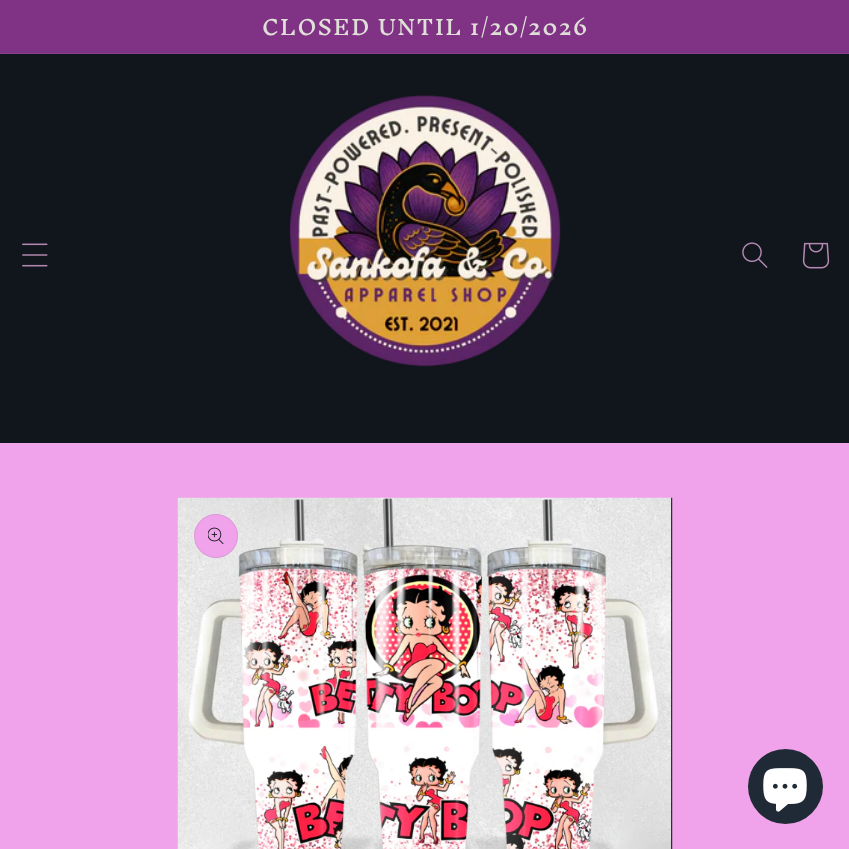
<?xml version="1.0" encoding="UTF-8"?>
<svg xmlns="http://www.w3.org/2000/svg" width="849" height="849">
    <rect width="100%" height="100%" fill="#F0A3EB"/>
    <rect x="0" y="0" width="849" height="53" fill="#803285"/>
    <rect x="0" y="53" width="849" height="1" fill="#88408C"/>
    <text x="262" y="35" font-family="Inknut Antiqua" font-size="20.25" font-weight="500" letter-spacing="1.4" fill="#DFDFD8">CLOSED UNTIL 1/20/2026</text>
    <rect x="0" y="54" width="849" height="389" fill="#11151C"/>
    <image x="22" y="243" width="26" height="24" href="img_01.png"/>
    <image x="289" y="95" width="272" height="272" href="img_02.png"/>
    <image x="742" y="242" width="26" height="26" href="img_03.png"/>
    <image x="802" y="242" width="28" height="27" href="img_04.png"/>
    <image x="177" y="497" width="496" height="352" href="img_05.png"/>
    <circle cx="216" cy="536" r="22" fill="#F0A3EB"/>
    <circle cx="216" cy="536" r="21.5" fill="none" stroke="#11151C" stroke-opacity="0.1"/>
    <image x="208" y="527" width="16" height="17" href="img_06.png"/>
    <circle cx="785.5" cy="786.5" r="37.5" fill="#202A36"/>
    <image x="763" y="768" width="44" height="44" href="img_07.png"/>
</svg>
